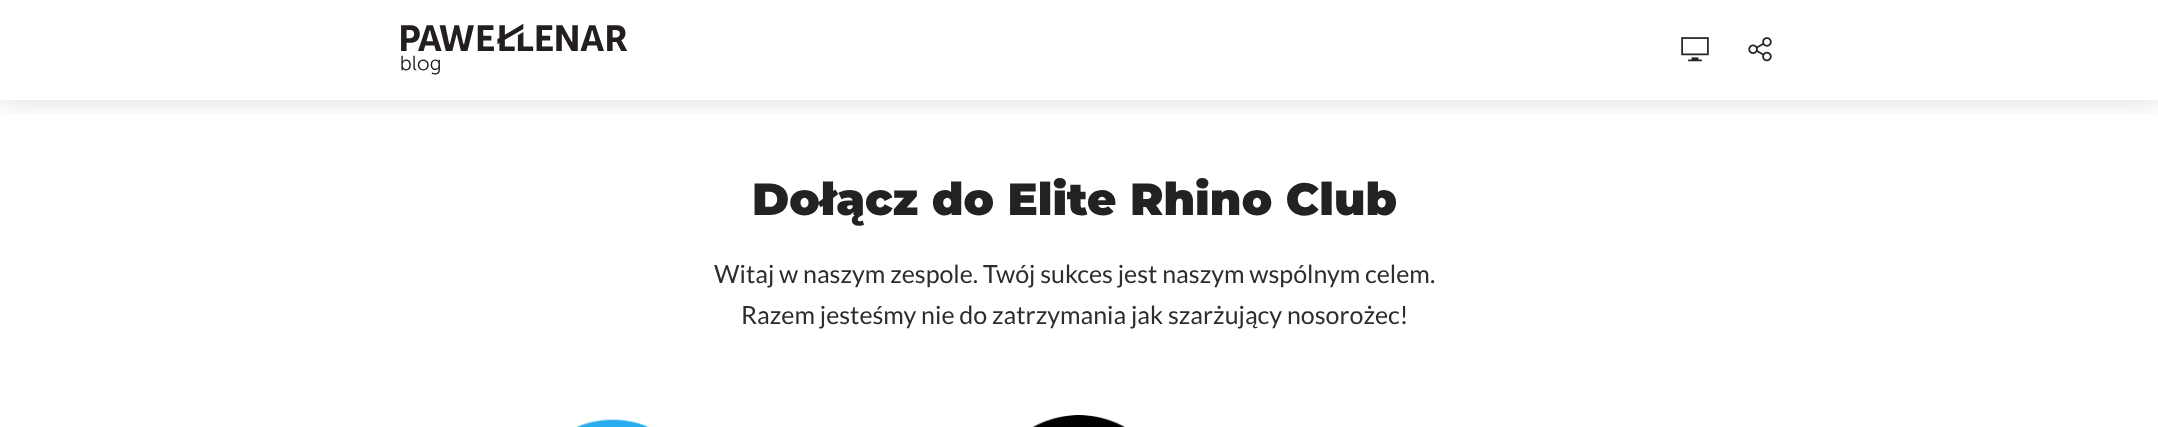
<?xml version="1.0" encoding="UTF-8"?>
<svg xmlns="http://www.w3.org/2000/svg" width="2158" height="427">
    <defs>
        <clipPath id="clip1"><rect x="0" y="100" width="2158" height="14"/></clipPath>
        <filter id="blur1" x="-50%" y="-200%" width="200%" height="500%"><feGaussianBlur stdDeviation="12.5"/></filter>
    </defs>
    <rect width="100%" height="100%" fill="#FFFFFF"/>
    <g clip-path="url(#clip1)">
        <rect x="0" y="0" width="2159" height="100" fill="#000000" fill-opacity="0.15" filter="url(#blur1)"/>
    </g>
    <image x="401" y="23" width="227" height="52" href="img_01.png"/>
    <image x="1681" y="37" width="28" height="25" href="img_02.png"/>
    <image x="1748" y="37" width="24" height="25" href="img_03.png"/>
    <text x="752" y="215" font-family="Montserrat" font-size="45" font-weight="900" fill="#222222">Dołącz do Elite Rhino Club</text>
    <text x="714" y="283" font-family="Lato" font-size="25" fill="#2D2D2D">Witaj w naszym zespole. Twój sukces jest naszym wspólnym celem.</text>
    <text x="741" y="324" font-family="Lato" font-size="25" fill="#2D2D2D">Razem jesteśmy nie do zatrzymania jak szarżujący nosorożec!</text>
    <image x="576" y="419" width="73" height="8" href="img_04.png"/>
    <image x="1032" y="415" width="93" height="12" href="img_05.png"/>
</svg>
